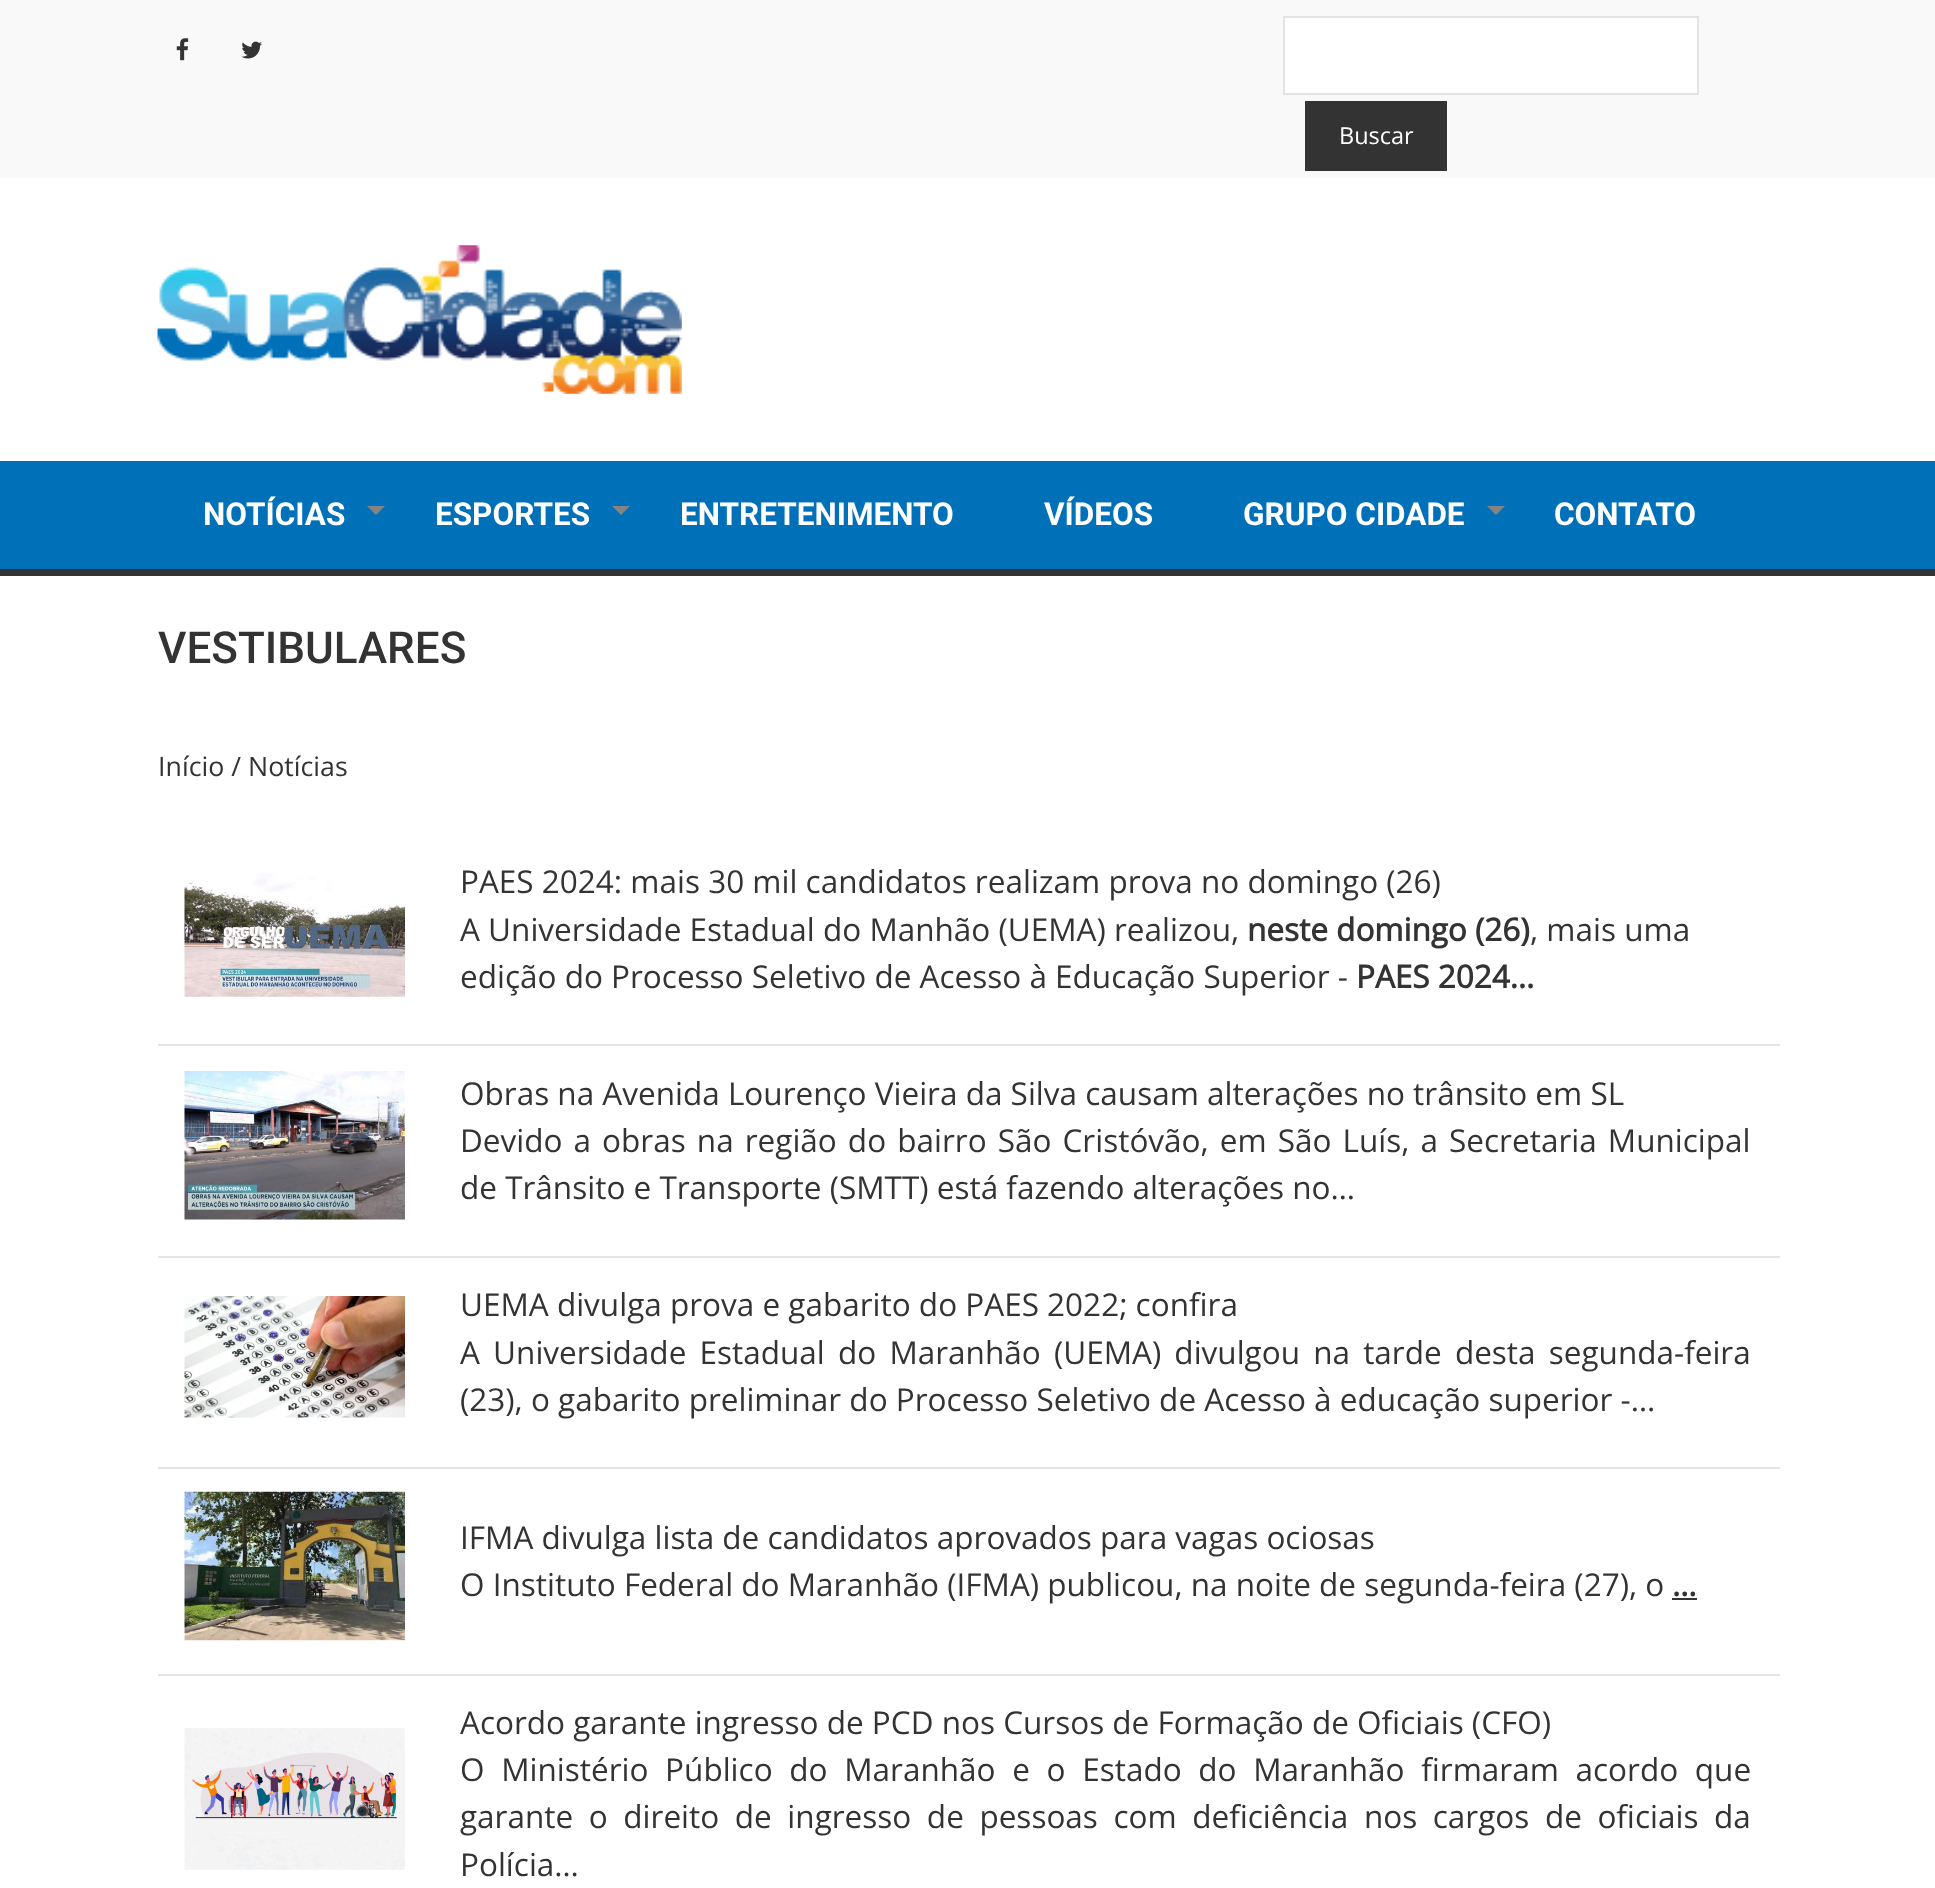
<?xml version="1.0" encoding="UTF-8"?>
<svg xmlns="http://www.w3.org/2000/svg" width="1935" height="1888">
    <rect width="100%" height="100%" fill="#FFFFFF"/>
    <rect x="0" y="0" width="1935" height="178" fill="#F9F9F9"/>
    <image x="176" y="38" width="13" height="23" href="img_01.png"/>
    <image x="241" y="41" width="21" height="18" href="img_02.png"/>
    <rect x="1284" y="17" width="414" height="77" fill="#FFFFFF" stroke="#E3E3E3" stroke-width="2"/>
    <rect x="1305" y="101" width="142" height="70" fill="#333333"/>
    <text x="1339" y="144" font-family="Open Sans" font-size="23.5" fill="#FFFFFF">Buscar</text>
    <image x="157" y="245" width="525" height="149" href="img_03.png"/>
    <rect x="0" y="461" width="1935" height="108" fill="#0071B9"/>
    <rect x="0" y="569" width="1935" height="7" fill="#333333"/>
    <text x="203" y="525" font-family="Roboto" font-size="31.5" font-weight="700" fill="#FFFFFF">NOTÍCIAS</text>
    <path d="M 367 506 H 385 L 376 515 Z" fill="#848484"/>
    <text x="435" y="525" font-family="Roboto" font-size="31.5" font-weight="700" fill="#FFFFFF">ESPORTES</text>
    <path d="M 612 506 H 630 L 621 515 Z" fill="#848484"/>
    <text x="680" y="525" font-family="Roboto" font-size="31.5" font-weight="700" fill="#FFFFFF">ENTRETENIMENTO</text>
    <text x="1044" y="525" font-family="Roboto" font-size="31.5" font-weight="700" fill="#FFFFFF">VÍDEOS</text>
    <text x="1243" y="525" font-family="Roboto" font-size="31.5" font-weight="700" fill="#FFFFFF">GRUPO CIDADE</text>
    <path d="M 1487 506 H 1505 L 1496 515 Z" fill="#848484"/>
    <text x="1554" y="525" font-family="Roboto" font-size="31.5" font-weight="700" fill="#FFFFFF">CONTATO</text>
    <text x="158" y="663" font-family="Roboto" font-size="44" font-weight="500" fill="#333333">VESTIBULARES</text>
    <text x="158" y="776" font-family="Open Sans" font-size="26.75" fill="#333333">Início / Notícias</text>
    <rect x="158" y="1044" width="1622" height="2" fill="#E6E4DF"/>
    <image x="184" y="873" width="221" height="124" href="img_04.png"/>
    <text font-family="Open Sans" font-size="31.5" fill="#333333">
        <tspan x="460" y="893">PAES 2024: mais 30 mil candidatos realizam prova no domingo (26)</tspan>
        <tspan x="460" y="941">A Universidade Estadual do Manhão (UEMA) realizou,</tspan>
    </text>
    <text x="1247" y="941" font-family="Open Sans" font-size="31.5" font-weight="700" fill="#333333">neste domingo (26)</text>
    <text x="1530" y="941" font-family="Open Sans" font-size="31.5" fill="#333333">, mais uma</text>
    <text x="460" y="988" font-family="Open Sans" font-size="31.5" fill="#333333">edição do Processo Seletivo de Acesso à Educação Superior -</text>
    <text x="1356" y="988" font-family="Open Sans" font-size="31.5" font-weight="700" fill="#333333">PAES 2024…</text>
    <rect x="158" y="1256" width="1622" height="2" fill="#E6E4DF"/>
    <image x="184" y="1071" width="221" height="149" href="img_05.png"/>
    <text font-family="Open Sans" font-size="31.5" fill="#333333">
        <tspan x="460" y="1105">Obras na Avenida Lourenço Vieira da Silva causam alterações no trânsito em SL</tspan>
        <tspan x="460" y="1152" word-spacing="2.9">Devido a obras na região do bairro São Cristóvão, em São Luís, a Secretaria Municipal</tspan>
        <tspan x="460" y="1199">de Trânsito e Transporte (SMTT) está fazendo alterações no…</tspan>
    </text>
    <rect x="158" y="1467" width="1622" height="2" fill="#E6E4DF"/>
    <image x="184" y="1296" width="221" height="122" href="img_06.png"/>
    <text font-family="Open Sans" font-size="31.5" fill="#333333">
        <tspan x="460" y="1316">UEMA divulga prova e gabarito do PAES 2022; confira</tspan>
        <tspan x="460" y="1364" word-spacing="5">A Universidade Estadual do Maranhão (UEMA) divulgou na tarde desta segunda-feira</tspan>
        <tspan x="460" y="1411">(23), o gabarito preliminar do Processo Seletivo de Acesso à educação superior -…</tspan>
    </text>
    <rect x="158" y="1674" width="1622" height="2" fill="#E6E4DF"/>
    <image x="184" y="1491" width="221" height="150" href="img_07.png"/>
    <text font-family="Open Sans" font-size="31.5" fill="#333333">
        <tspan x="460" y="1549">IFMA divulga lista de candidatos aprovados para vagas ociosas</tspan>
        <tspan x="460" y="1596">O Instituto Federal do Maranhão (IFMA) publicou, na noite de segunda-feira (27), o</tspan>
    </text>
    <text x="1672" y="1596" font-family="Open Sans" font-size="31.5" font-weight="700" fill="#333333">…</text>
    <rect x="1672" y="1598" width="25" height="2" fill="#333333"/>
    <image x="184" y="1728" width="221" height="142" href="img_08.png"/>
    <text font-family="Open Sans" font-size="31.5" fill="#333333">
        <tspan x="460" y="1734">Acordo garante ingresso de PCD nos Cursos de Formação de Oficiais (CFO)</tspan>
        <tspan x="460" y="1781" word-spacing="8.5">O Ministério Público do Maranhão e o Estado do Maranhão firmaram acordo que</tspan>
        <tspan x="460" y="1828" word-spacing="7.4">garante o direito de ingresso de pessoas com deficiência nos cargos de oficiais da</tspan>
        <tspan x="460" y="1876">Polícia…</tspan>
    </text>
</svg>
